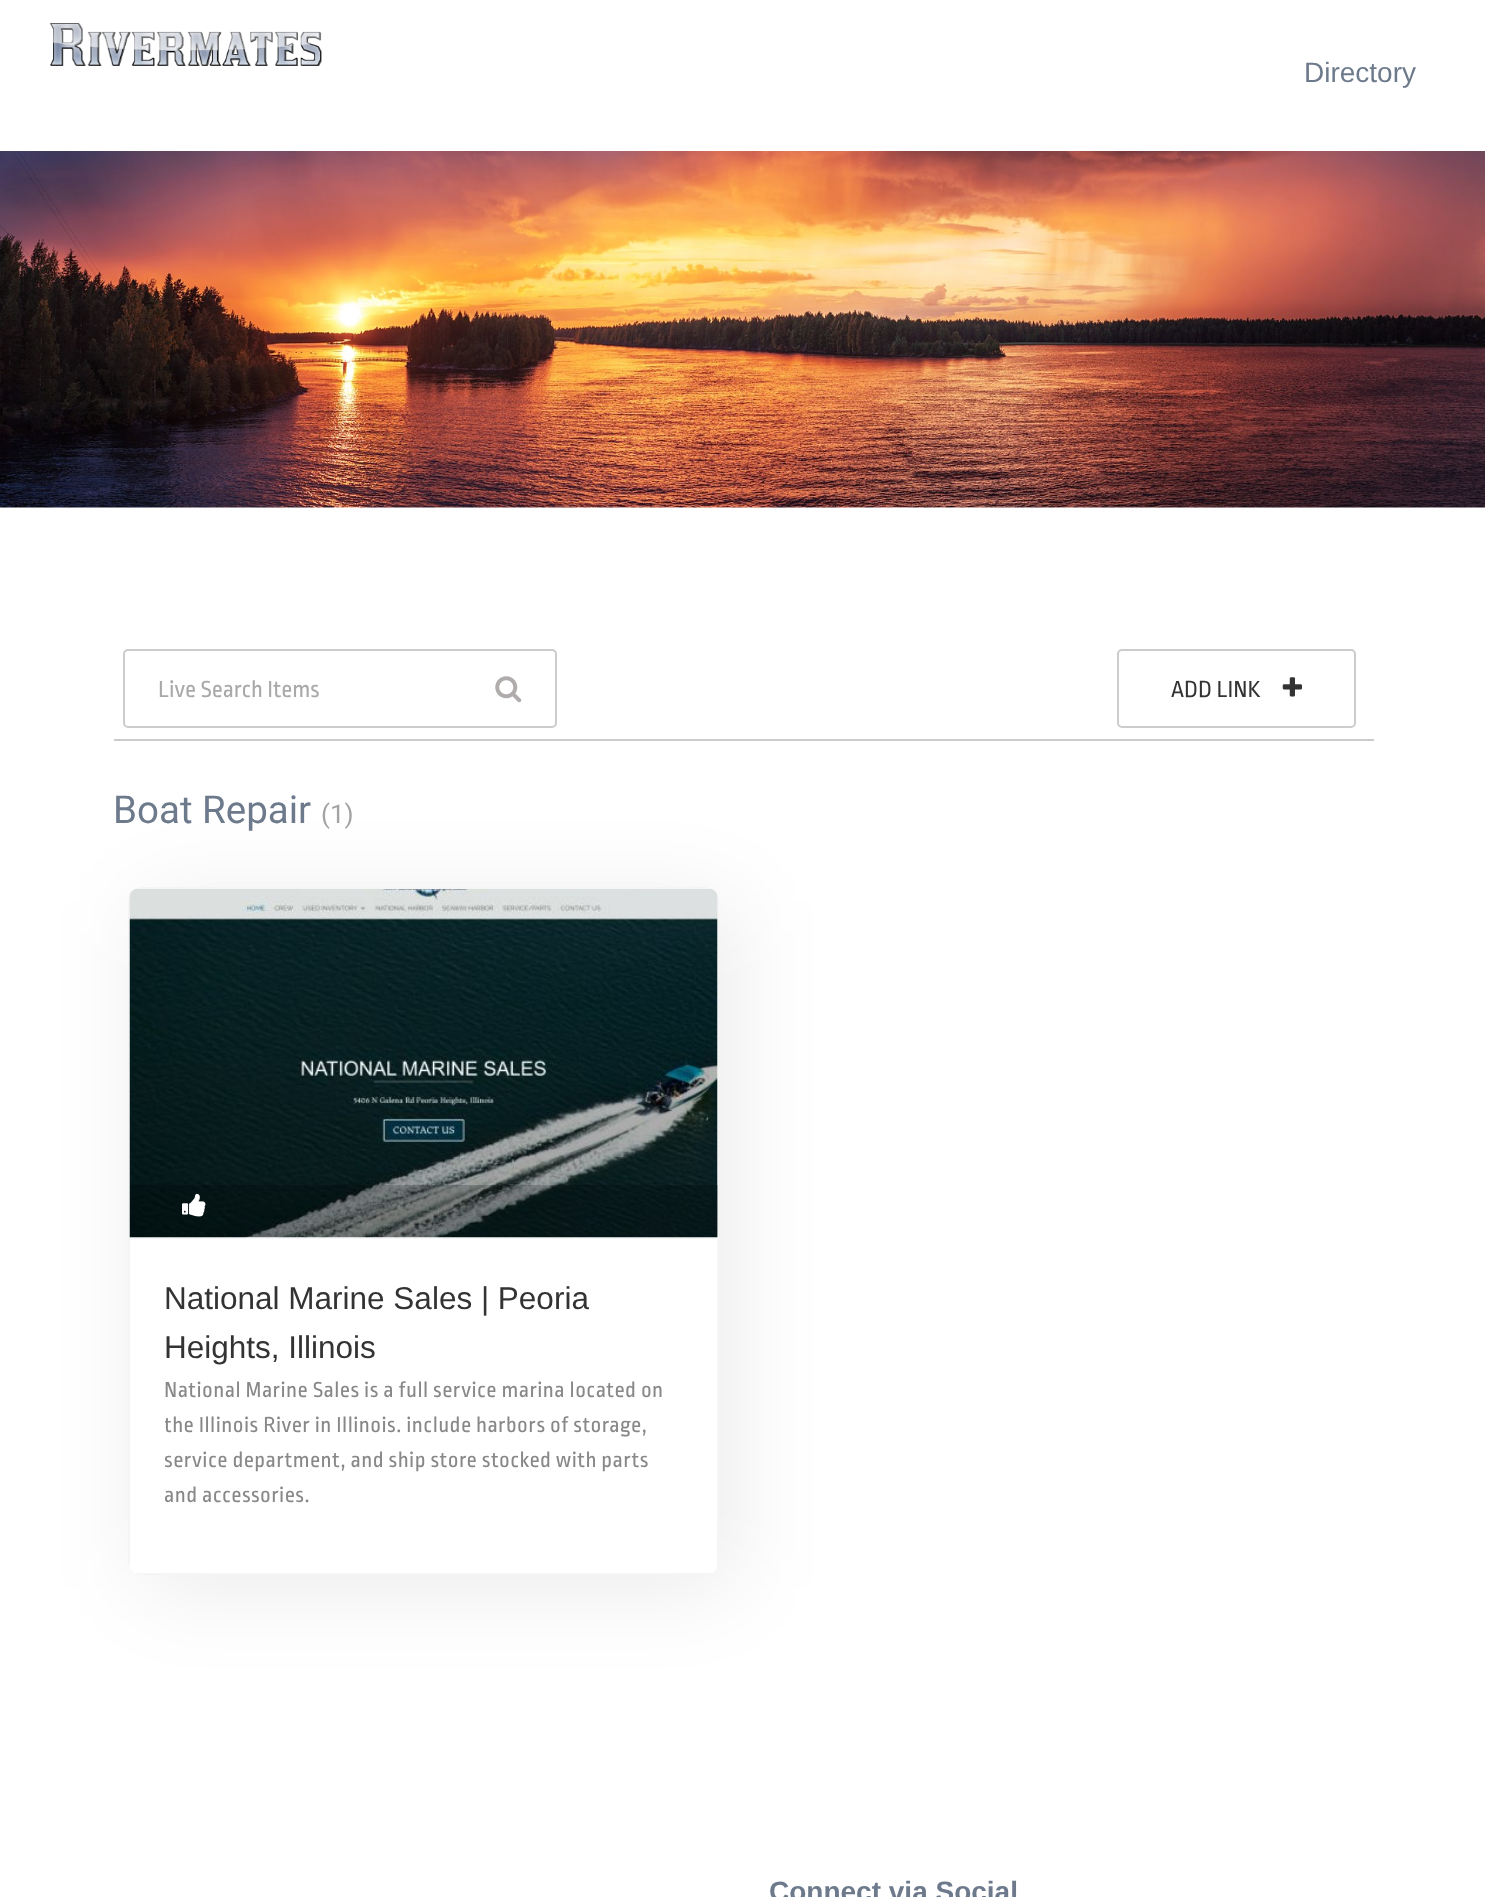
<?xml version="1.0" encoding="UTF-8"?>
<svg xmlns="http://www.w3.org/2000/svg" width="1485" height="1897">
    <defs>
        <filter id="blur1" x="-50%" y="-200%" width="200%" height="500%"><feGaussianBlur stdDeviation="44"/></filter>
        <clipPath id="clip1"><rect x="165" y="1372" width="518" height="140"/></clipPath>
    </defs>
    <rect width="100%" height="100%" fill="#FFFFFF"/>
    <image x="49" y="23" width="273" height="43" href="img_01.png"/>
    <text x="1304" y="82" font-family="Liberation Sans" font-size="28" fill="#6D7A8C">Directory</text>
    <image x="0" y="151" width="1485" height="357" href="img_02.png"/>
    <rect x="114" y="739" width="1260" height="2" fill="#CCCCCC"/>
    <rect x="124" y="650" width="432" height="77" rx="4" fill="none" stroke="#CCCCCC" stroke-width="2"/>
    <text x="158" y="697" font-family="Ropa Sans" font-size="24.5" fill="#A9A9A9">Live Search Items</text>
    <image x="495" y="676" width="27" height="27" href="img_03.png"/>
    <rect x="1118" y="650" width="237" height="77" rx="4" fill="none" stroke="#CCCCCC" stroke-width="2"/>
    <text x="1171" y="697" font-family="Ropa Sans" font-size="24.5" fill="#333333">ADD LINK</text>
    <image x="1282" y="677" width="20" height="20" href="img_04.png"/>
    <text x="113" y="823" font-family="Roboto" font-size="38.5" fill="#6D7A8C">Boat Repair</text>
    <text x="321" y="823" font-family="Roboto" font-size="26" fill="#A3A3A3">(1)</text>
    <rect x="142" y="901" width="591" height="688" rx="14" fill="#000000" fill-opacity="0.08" filter="url(#blur1)"/>
    <rect x="128" y="887" width="591" height="688" rx="14" fill="#FFFFFF"/>
    <path d="M 128 901 V 1561 C 128 1564 129 1566 130 1568 V 894 C 129 896 128 898 128 901 Z M 142 887 C 139 887 137 888 135 889 H 712 C 710 888 708 887 705 887 Z M 719 901 C 719 898 718 896 717 894 V 1568 C 718 1566 719 1564 719 1561 Z M 705 1575 C 708 1575 710 1574 712 1573 H 135 C 137 1574 139 1575 142 1575 Z" fill="#F5F5F5" fill-rule="evenodd"/>
    <rect x="130" y="1237" width="588" height="2" fill="#F7F7F7"/>
    <image x="129" y="889" width="589" height="349" href="img_05.png"/>
    <rect x="130" y="1185" width="588" height="52" fill="#000000" fill-opacity="0.2"/>
    <image x="182" y="1193" width="24" height="24" href="img_06.png"/>
    <text font-family="Liberation Sans" font-size="31.5" fill="#333333">
        <tspan x="164" y="1309">National Marine Sales | Peoria</tspan>
        <tspan x="164" y="1358">Heights, Illinois</tspan>
    </text>
    <text x="164" y="1397" font-family="Ropa Sans" font-size="22.75" letter-spacing="0.45" fill="#888888">National Marine Sales is a full service marina located on</text>
    <g clip-path="url(#clip1)">
        <text font-family="Ropa Sans" font-size="22.75" letter-spacing="0.45" fill="#888888">
            <tspan x="164" y="1432">the Illinois River in Illinois. include harbors of storage,</tspan>
            <tspan x="164" y="1467">service department, and ship store stocked with parts</tspan>
            <tspan x="164" y="1502">and accessories.</tspan>
        </text>
    </g>
    <text x="769" y="1901" font-family="Liberation Sans" font-size="28" font-weight="700" fill="#6D7A8C">Connect via Social</text>
</svg>
